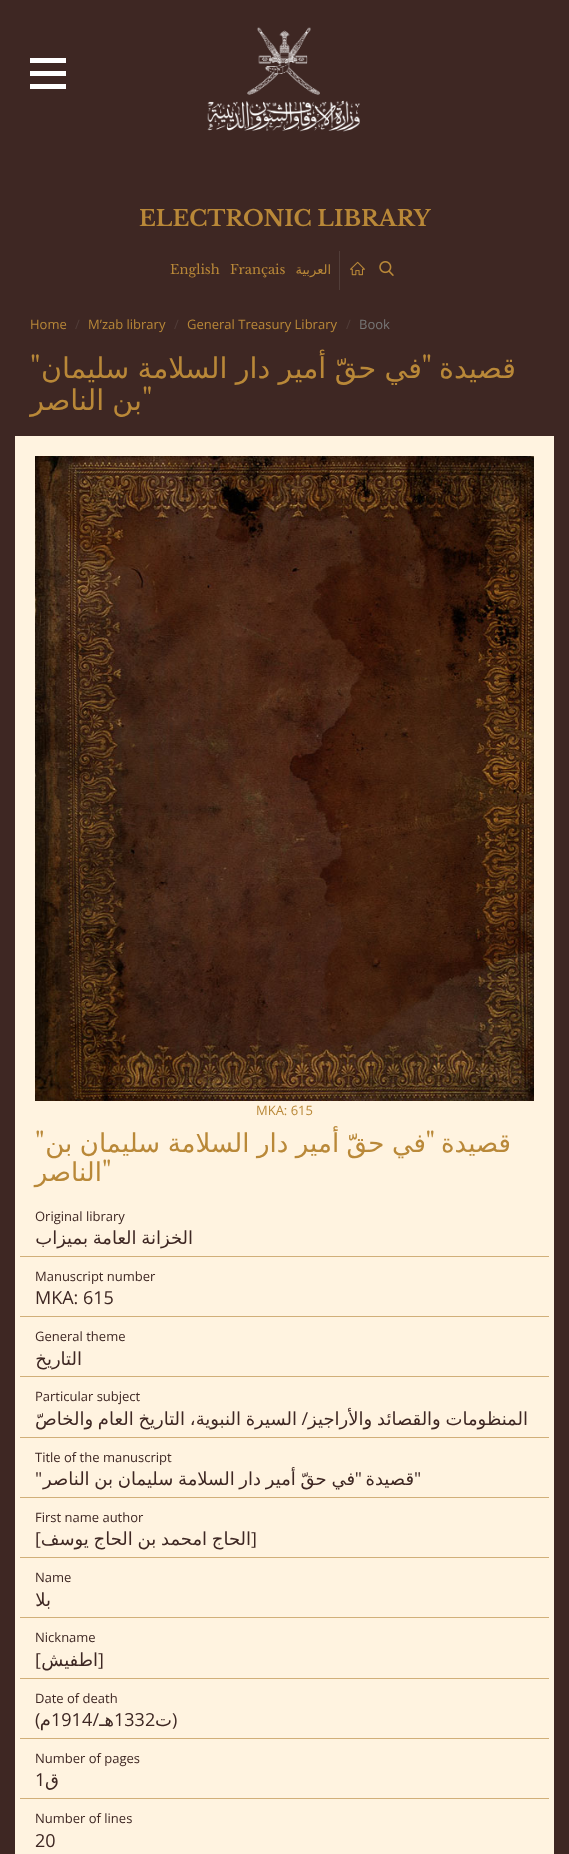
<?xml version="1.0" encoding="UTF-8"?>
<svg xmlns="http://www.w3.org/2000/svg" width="569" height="1854">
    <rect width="100%" height="100%" fill="#3E2723"/>
    <rect x="30" y="58" width="36" height="5" fill="#FFFFFF"/>
    <rect x="30" y="71" width="36" height="5" fill="#FFFFFF"/>
    <rect x="30" y="84" width="36" height="5" fill="#FFFFFF"/>
    <image x="207" y="27" width="153" height="105" href="img_01.png"/>
    <text x="139" y="226" font-family="Libre Baskerville" font-size="22" font-weight="700" fill="#B98838">ELECTRONIC LIBRARY</text>
    <text x="170" y="274" font-family="Libre Baskerville" font-size="13" fill="#B98838">English</text>
    <text x="230" y="274" font-family="Libre Baskerville" font-size="13" fill="#B98838">Français</text>
    <text x="331" y="274" font-family="DejaVu Sans" font-size="13" direction="rtl" fill="#B98838">العربية</text>
    <rect x="339" y="251" width="1" height="39" fill="#513D39"/>
    <image x="350" y="261" width="15" height="15" href="img_02.png"/>
    <image x="379" y="261" width="15" height="15" href="img_03.png"/>
    <text x="30" y="329" font-family="Open Sans" font-size="13" fill="#B98838">Home</text>
    <text x="75" y="329" font-family="Open Sans" font-size="13" fill="#513D39">/</text>
    <text x="88" y="329" font-family="Open Sans" font-size="13" fill="#B98838">M’zab library</text>
    <text x="174" y="329" font-family="Open Sans" font-size="13" fill="#513D39">/</text>
    <text x="187" y="329" font-family="Open Sans" font-size="13" fill="#B98838">General Treasury Library</text>
    <text x="346" y="329" font-family="Open Sans" font-size="13" fill="#513D39">/</text>
    <text x="359" y="329" font-family="Open Sans" font-size="13" fill="#777777">Book</text>
    <text x="30" y="378" font-family="Libre Baskerville" font-size="28.6" fill="#B98838">"</text>
    <text x="422" y="378" word-spacing="-0.75" font-family="DejaVu Sans" font-size="28.6" direction="rtl" fill="#B98838">في حقّ أمير دار السلامة سليمان</text>
    <text x="432" y="378" font-family="Libre Baskerville" font-size="28.6" direction="rtl" fill="#B98838">"</text>
    <text x="516" y="378" font-family="DejaVu Sans" font-size="28.6" direction="rtl" fill="#B98838">قصيدة</text>
    <text x="142" y="410" word-spacing="-1" font-family="DejaVu Sans" font-size="28.6" direction="rtl" fill="#B98838">بن الناصر</text>
    <text x="142" y="410" font-family="Libre Baskerville" font-size="28.6" fill="#B98838">"</text>
    <rect x="15" y="436" width="539" height="1418" fill="#FFF3E0"/>
    <image x="35" y="456" width="499" height="645" href="img_04.png"/>
    <text x="256" y="1115" font-family="Open Sans" font-size="13" fill="#B98838">MKA: 615</text>
    <text x="35" y="1152" font-family="Libre Baskerville" font-size="26" fill="#B98838">"</text>
    <text x="426" y="1152" word-spacing="-0.75" font-family="DejaVu Sans" font-size="26" direction="rtl" fill="#B98838">في حقّ أمير دار السلامة سليمان بن</text>
    <text x="435" y="1152" font-family="Libre Baskerville" font-size="26" direction="rtl" fill="#B98838">"</text>
    <text x="511" y="1152" font-family="DejaVu Sans" font-size="26" direction="rtl" fill="#B98838">قصيدة</text>
    <text x="102" y="1181" font-family="DejaVu Sans" font-size="26" direction="rtl" fill="#B98838">الناصر</text>
    <text x="102" y="1181" font-family="Libre Baskerville" font-size="26" fill="#B98838">"</text>
    <rect x="20" y="1256" width="529" height="1" fill="#D1AF79"/>
    <text x="35" y="1221" font-family="Open Sans" font-size="13" fill="#3E2723">Original library</text>
    <text x="193" y="1244" word-spacing="-1" font-family="DejaVu Sans" font-size="18" direction="rtl" fill="#3E2723">الخزانة العامة بميزاب</text>
    <rect x="20" y="1316" width="529" height="1" fill="#D1AF79"/>
    <text x="35" y="1281" font-family="Open Sans" font-size="13" fill="#3E2723">Manuscript number</text>
    <text x="35" y="1304" font-family="Open Sans" font-size="18" fill="#3E2723">MKA: 615</text>
    <rect x="20" y="1376" width="529" height="1" fill="#D1AF79"/>
    <text x="35" y="1341" font-family="Open Sans" font-size="13" fill="#3E2723">General theme</text>
    <text x="82" y="1365" font-family="DejaVu Sans" font-size="18" direction="rtl" fill="#3E2723">التاريخ</text>
    <rect x="20" y="1437" width="529" height="1" fill="#D1AF79"/>
    <text x="35" y="1401" font-family="Open Sans" font-size="13" fill="#3E2723">Particular subject</text>
    <text x="297" y="1425" word-spacing="-1" font-family="DejaVu Sans" font-size="18" direction="rtl" fill="#3E2723">السيرة النبوية، التاريخ العام والخاصّ</text>
    <text x="308" y="1425" font-family="Open Sans" font-size="18" direction="rtl" fill="#3E2723">/</text>
    <text x="528" y="1425" word-spacing="-1" font-family="DejaVu Sans" font-size="18" direction="rtl" fill="#3E2723">المنظومات والقصائد والأراجيز</text>
    <rect x="20" y="1497" width="529" height="1" fill="#D1AF79"/>
    <text x="35" y="1462" font-family="Open Sans" font-size="13" fill="#3E2723">Title of the manuscript</text>
    <text x="35" y="1485" font-family="Open Sans" font-size="18" fill="#3E2723">"</text>
    <text x="355" y="1485" word-spacing="-1" font-family="DejaVu Sans" font-size="18" direction="rtl" fill="#3E2723">في حقّ أمير دار السلامة سليمان بن الناصر</text>
    <text x="362" y="1485" font-family="Open Sans" font-size="18" direction="rtl" fill="#3E2723">"</text>
    <text x="414" y="1485" font-family="DejaVu Sans" font-size="18" direction="rtl" fill="#3E2723">قصيدة</text>
    <text x="414" y="1485" font-family="Open Sans" font-size="18" fill="#3E2723">"</text>
    <rect x="20" y="1557" width="529" height="1" fill="#D1AF79"/>
    <text x="35" y="1522" font-family="Open Sans" font-size="13" fill="#3E2723">First name author</text>
    <text x="35" y="1545" font-family="Open Sans" font-size="18" fill="#3E2723">[</text>
    <text x="251" y="1545" word-spacing="-1" font-family="DejaVu Sans" font-size="18" direction="rtl" fill="#3E2723">الحاج امحمد بن الحاج يوسف</text>
    <text x="251" y="1545" font-family="Open Sans" font-size="18" fill="#3E2723">]</text>
    <rect x="20" y="1617" width="529" height="1" fill="#D1AF79"/>
    <text x="35" y="1582" font-family="Open Sans" font-size="13" fill="#3E2723">Name</text>
    <text x="51" y="1606" font-family="DejaVu Sans" font-size="18" direction="rtl" fill="#3E2723">بلا</text>
    <rect x="20" y="1678" width="529" height="1" fill="#D1AF79"/>
    <text x="35" y="1642" font-family="Open Sans" font-size="13" fill="#3E2723">Nickname</text>
    <text x="35" y="1666" font-family="Open Sans" font-size="18" fill="#3E2723">[</text>
    <text x="98" y="1666" font-family="DejaVu Sans" font-size="18" direction="rtl" fill="#3E2723">اطفيش</text>
    <text x="98" y="1666" font-family="Open Sans" font-size="18" fill="#3E2723">]</text>
    <rect x="20" y="1738" width="529" height="1" fill="#D1AF79"/>
    <text x="35" y="1703" font-family="Open Sans" font-size="13" fill="#3E2723">Date of death</text>
    <text x="35" y="1726" font-family="Open Sans" font-size="18" fill="#3E2723">(</text>
    <text x="51" y="1726" font-family="DejaVu Sans" font-size="18" direction="rtl" fill="#3E2723">م</text>
    <text x="51" y="1726" font-family="Open Sans" font-size="18" fill="#3E2723">1914</text>
    <text x="99" y="1726" font-family="Open Sans" font-size="18" direction="rtl" fill="#3E2723">/</text>
    <text x="114" y="1726" font-family="DejaVu Sans" font-size="18" direction="rtl" fill="#3E2723">هـ</text>
    <text x="114" y="1726" font-family="Open Sans" font-size="18" fill="#3E2723">1332</text>
    <text x="172" y="1726" font-family="DejaVu Sans" font-size="18" direction="rtl" fill="#3E2723">ت</text>
    <text x="172" y="1726" font-family="Open Sans" font-size="18" fill="#3E2723">)</text>
    <rect x="20" y="1798" width="529" height="1" fill="#D1AF79"/>
    <text x="35" y="1763" font-family="Open Sans" font-size="13" fill="#3E2723">Number of pages</text>
    <text x="35" y="1786" font-family="Open Sans" font-size="18" fill="#3E2723">1</text>
    <text x="59" y="1786" font-family="DejaVu Sans" font-size="18" direction="rtl" fill="#3E2723">ق</text>
    <text x="35" y="1823" font-family="Open Sans" font-size="13" fill="#3E2723">Number of lines</text>
    <text x="35" y="1847" font-family="Open Sans" font-size="18" fill="#3E2723">20</text>
</svg>
